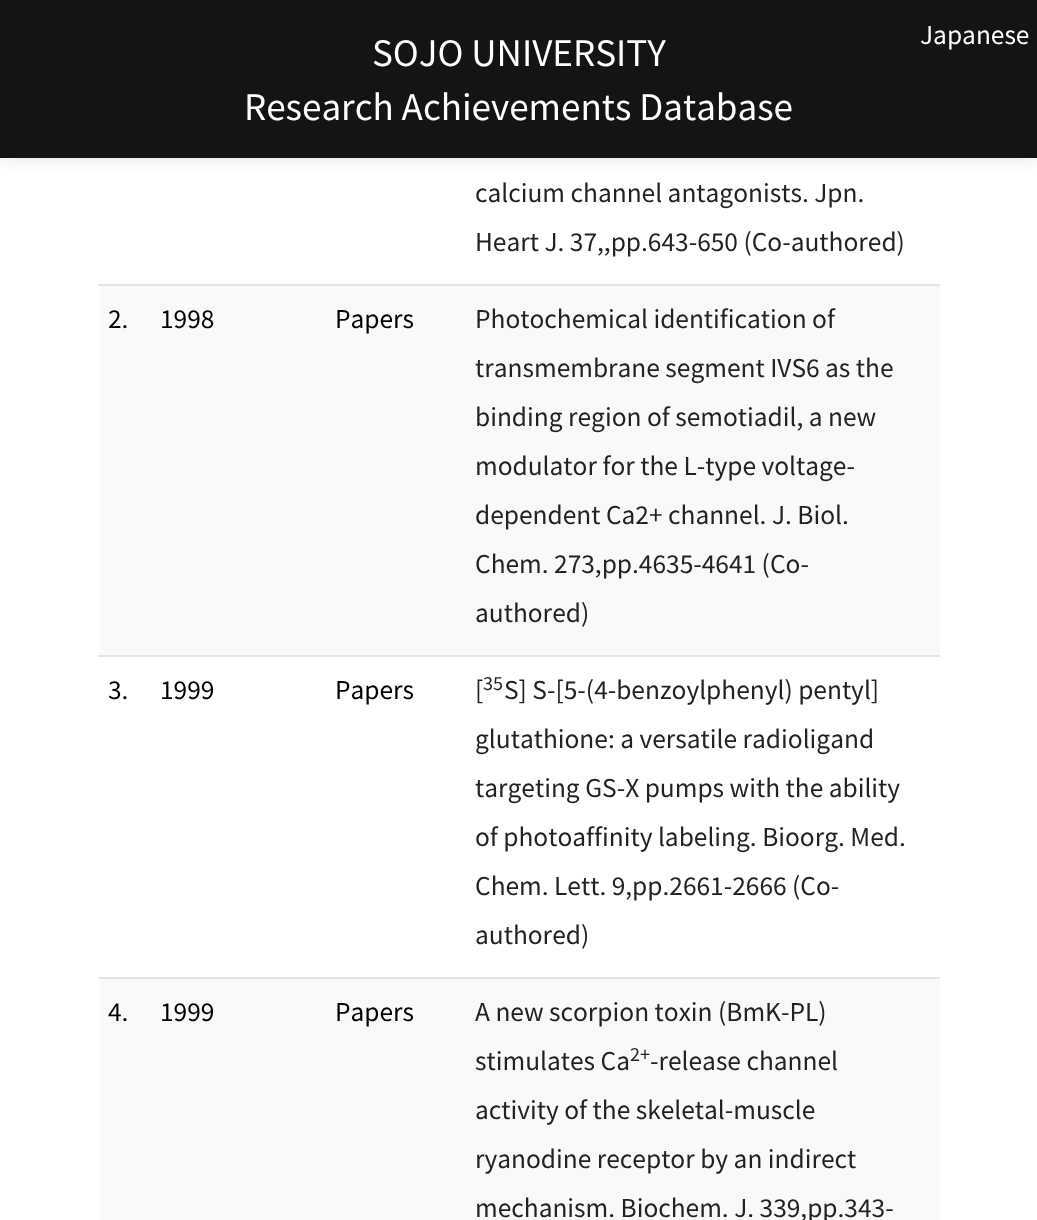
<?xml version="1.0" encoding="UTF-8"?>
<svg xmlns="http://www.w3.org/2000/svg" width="1037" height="1220">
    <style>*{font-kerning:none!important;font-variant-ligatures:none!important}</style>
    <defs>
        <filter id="blur1" x="-50%" y="-200%" width="200%" height="500%"><feGaussianBlur stdDeviation="9"/></filter>
    </defs>
    <rect width="100%" height="100%" fill="#FFFFFF"/>
    <rect x="0" y="2" width="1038" height="157" fill="#000000" fill-opacity="0.1" filter="url(#blur1)"/>
    <rect x="0" y="0" width="1037" height="158" fill="#141414"/>
    <text x="372" y="66" font-family="Noto Sans JP" font-size="35" fill="#FFFFFF">SOJO UNIVERSITY</text>
    <text x="244" y="120" font-family="Noto Sans JP" font-size="35" fill="#FFFFFF">Research Achievements Database</text>
    <text x="920" y="44" font-family="Noto Sans JP" font-size="24.5" fill="#FFFFFF">Japanese</text>
    <rect x="98" y="284" width="842" height="2" fill="#E5E5E5"/>
    <text x="475" y="202" font-family="Noto Sans JP" font-size="24.5" fill="#222222">calcium channel antagonists. Jpn.</text>
    <text x="475" y="251" font-family="Noto Sans JP" font-size="24.5" fill="#222222">Heart J. 37,,pp.643-650 (Co-authored)</text>
    <rect x="100" y="286" width="840" height="369" fill="#F9F9F9"/>
    <text x="108" y="328" font-family="Noto Sans JP" font-size="24.5" fill="#000000">2.</text>
    <text x="160" y="328" font-family="Noto Sans JP" font-size="24.5" fill="#000000">1998</text>
    <text x="335" y="328" font-family="Noto Sans JP" font-size="24.5" fill="#000000">Papers</text>
    <rect x="98" y="655" width="842" height="2" fill="#E5E5E5"/>
    <text x="475" y="328" font-family="Noto Sans JP" font-size="24.5" fill="#222222">Photochemical identification of</text>
    <text x="475" y="377" font-family="Noto Sans JP" font-size="24.5" fill="#222222">transmembrane segment IVS6 as the</text>
    <text x="475" y="426" font-family="Noto Sans JP" font-size="24.5" fill="#222222">binding region of semotiadil, a new</text>
    <text x="475" y="475" font-family="Noto Sans JP" font-size="24.5" fill="#222222">modulator for the L-type voltage-</text>
    <text x="475" y="524" font-family="Noto Sans JP" font-size="24.5" fill="#222222">dependent Ca2+ channel. J. Biol.</text>
    <text x="475" y="573" font-family="Noto Sans JP" font-size="24.5" fill="#222222">Chem. 273,pp.4635-4641 (Co-</text>
    <text x="475" y="622" font-family="Noto Sans JP" font-size="24.5" fill="#222222">authored)</text>
    <text x="108" y="699" font-family="Noto Sans JP" font-size="24.5" fill="#000000">3.</text>
    <text x="160" y="699" font-family="Noto Sans JP" font-size="24.5" fill="#000000">1999</text>
    <text x="335" y="699" font-family="Noto Sans JP" font-size="24.5" fill="#000000">Papers</text>
    <rect x="98" y="977" width="842" height="2" fill="#E5E5E5"/>
    <text x="475" y="699" font-family="Noto Sans JP" font-size="24.5" fill="#222222">[</text>
    <text x="483" y="690" font-family="Noto Sans JP" font-size="18" fill="#222222">35</text>
    <text x="504" y="699" font-family="Noto Sans JP" font-size="24.5" fill="#222222">S] S-[5-(4-benzoylphenyl) pentyl]</text>
    <text x="475" y="748" font-family="Noto Sans JP" font-size="24.5" fill="#222222">glutathione: a versatile radioligand</text>
    <text x="475" y="797" font-family="Noto Sans JP" font-size="24.5" fill="#222222">targeting GS-X pumps with the ability</text>
    <text x="475" y="846" font-family="Noto Sans JP" font-size="24.5" fill="#222222">of photoaffinity labeling. Bioorg. Med.</text>
    <text x="475" y="895" font-family="Noto Sans JP" font-size="24.5" fill="#222222">Chem. Lett. 9,pp.2661-2666 (Co-</text>
    <text x="475" y="944" font-family="Noto Sans JP" font-size="24.5" fill="#222222">authored)</text>
    <rect x="100" y="979" width="840" height="241" fill="#F9F9F9"/>
    <text x="108" y="1021" font-family="Noto Sans JP" font-size="24.5" fill="#000000">4.</text>
    <text x="160" y="1021" font-family="Noto Sans JP" font-size="24.5" fill="#000000">1999</text>
    <text x="335" y="1021" font-family="Noto Sans JP" font-size="24.5" fill="#000000">Papers</text>
    <text x="475" y="1021" font-family="Noto Sans JP" font-size="24.5" fill="#222222">A new scorpion toxin (BmK-PL)</text>
    <text x="475" y="1070" font-family="Noto Sans JP" font-size="24.5" fill="#222222">stimulates Ca</text>
    <text x="630" y="1061" font-family="Noto Sans JP" font-size="18" fill="#222222">2+</text>
    <text x="650" y="1070" font-family="Noto Sans JP" font-size="24.5" fill="#222222">-release channel</text>
    <text x="475" y="1119" font-family="Noto Sans JP" font-size="24.5" fill="#222222">activity of the skeletal-muscle</text>
    <text x="475" y="1168" font-family="Noto Sans JP" font-size="24.5" fill="#222222">ryanodine receptor by an indirect</text>
    <text x="475" y="1217" font-family="Noto Sans JP" font-size="24.5" fill="#222222">mechanism. Biochem. J. 339,pp.343-</text>
</svg>
